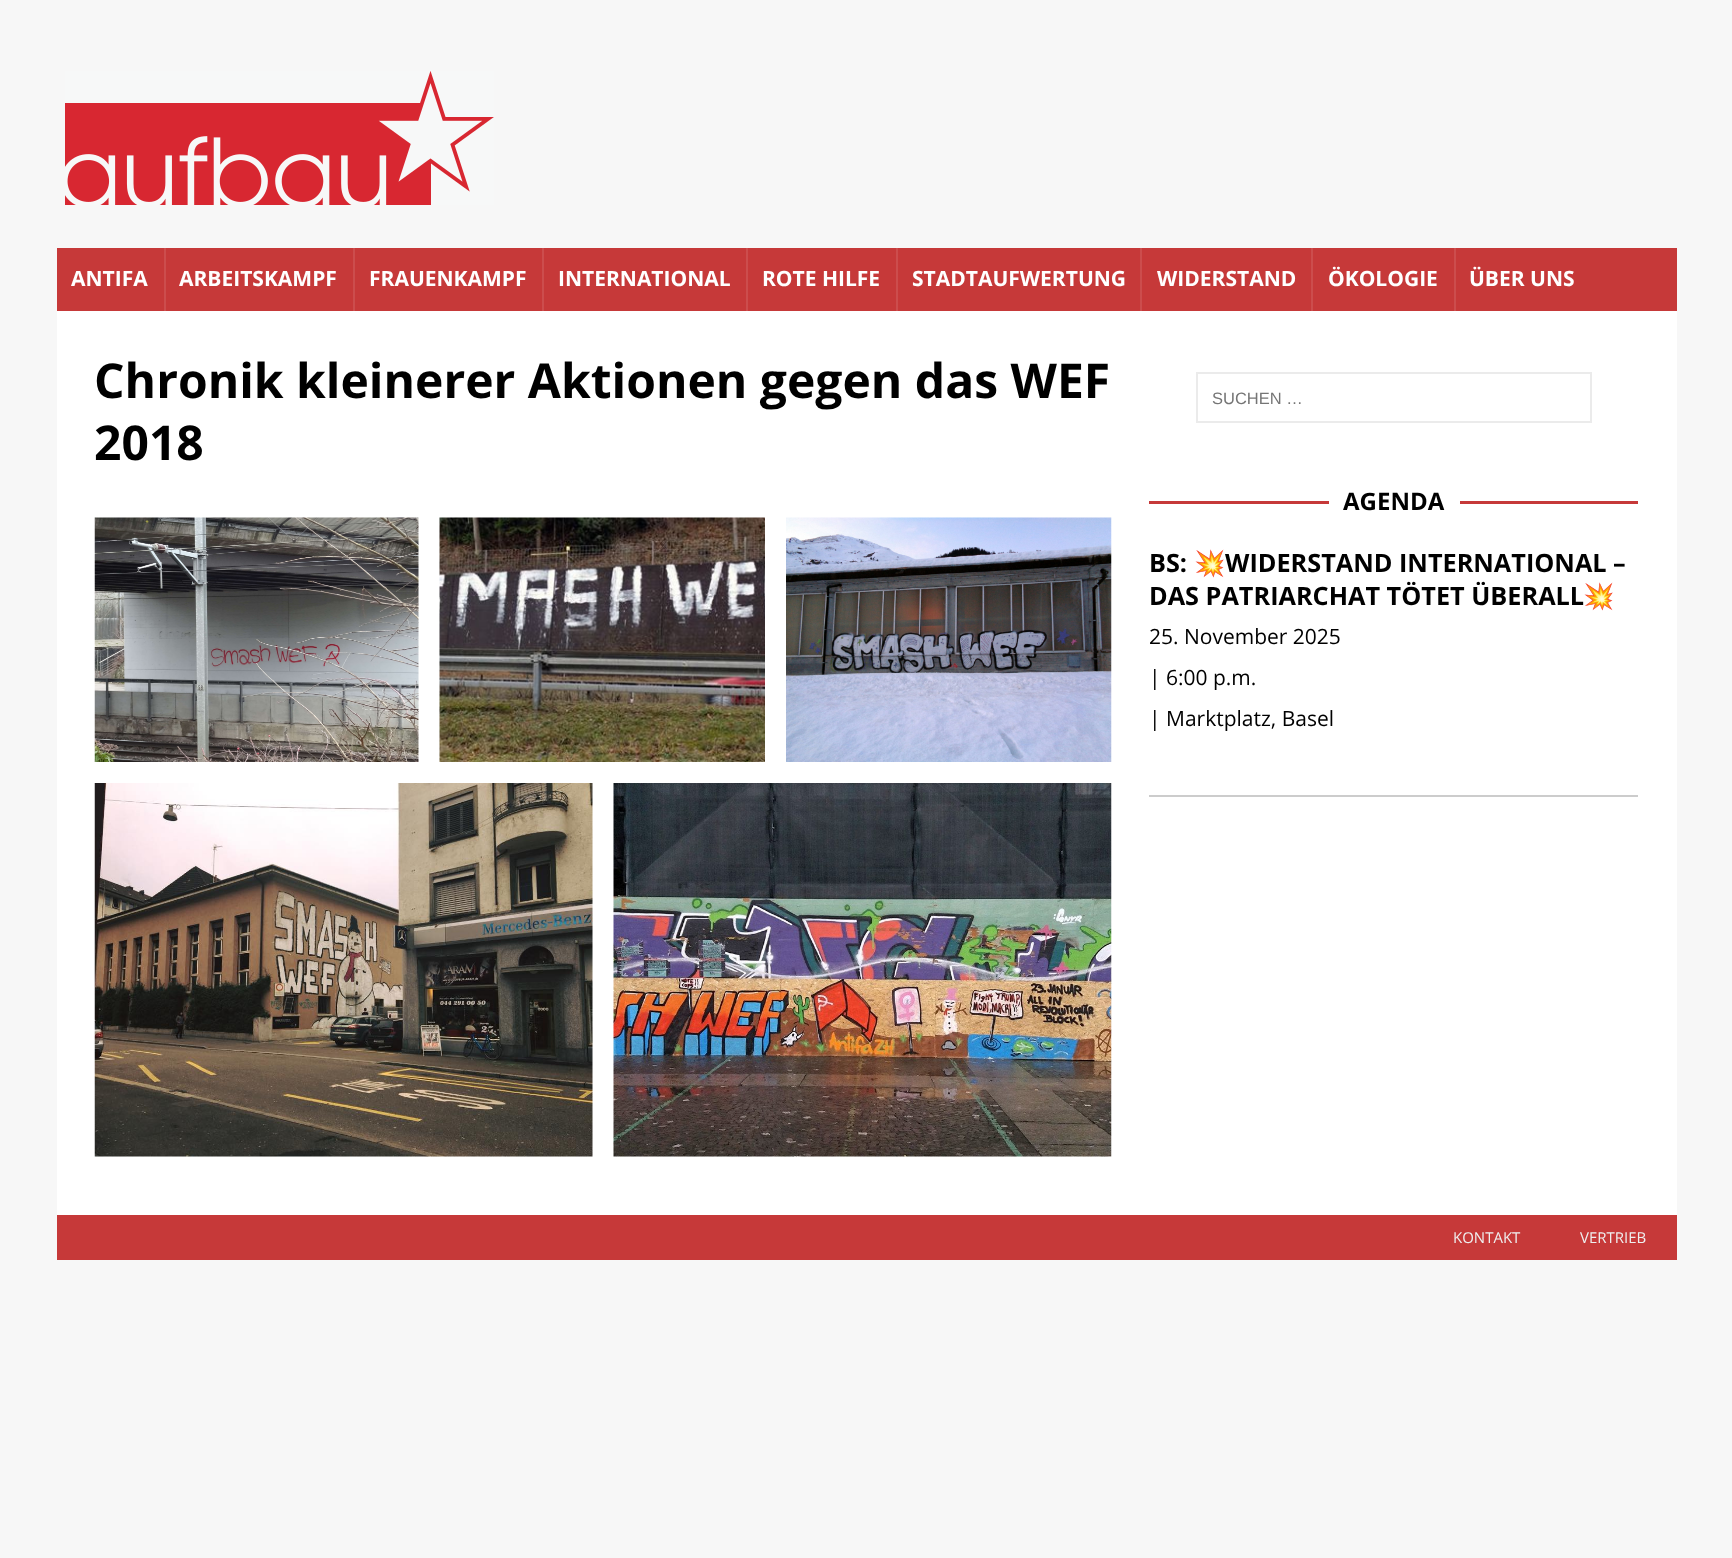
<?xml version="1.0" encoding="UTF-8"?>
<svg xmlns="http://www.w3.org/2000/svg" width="1732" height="1558">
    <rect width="100%" height="100%" fill="#F7F7F7"/>
    <image x="65" y="71" width="429" height="134" href="img_01.png"/>
    <rect x="57" y="248" width="1620" height="63" fill="#C63939"/>
    <text x="71" y="286" font-family="Open Sans" font-size="21" font-weight="700" fill="#FFFFFF">ANTIFA</text>
    <rect x="164" y="248" width="2" height="63" fill="#CC4D4D"/>
    <text x="179" y="286" font-family="Open Sans" font-size="21" font-weight="700" fill="#FFFFFF">ARBEITSKAMPF</text>
    <rect x="353" y="248" width="2" height="63" fill="#CC4D4D"/>
    <text x="369" y="286" font-family="Open Sans" font-size="21" font-weight="700" fill="#FFFFFF">FRAUENKAMPF</text>
    <rect x="542" y="248" width="2" height="63" fill="#CC4D4D"/>
    <text x="558" y="286" font-family="Open Sans" font-size="21" font-weight="700" fill="#FFFFFF">INTERNATIONAL</text>
    <rect x="746" y="248" width="2" height="63" fill="#CC4D4D"/>
    <text x="762" y="286" font-family="Open Sans" font-size="21" font-weight="700" fill="#FFFFFF">ROTE HILFE</text>
    <rect x="896" y="248" width="2" height="63" fill="#CC4D4D"/>
    <text x="912" y="286" font-family="Open Sans" font-size="21" font-weight="700" fill="#FFFFFF">STADTAUFWERTUNG</text>
    <rect x="1140" y="248" width="2" height="63" fill="#CC4D4D"/>
    <text x="1157" y="286" font-family="Open Sans" font-size="21" font-weight="700" fill="#FFFFFF">WIDERSTAND</text>
    <rect x="1311" y="248" width="2" height="63" fill="#CC4D4D"/>
    <text x="1328" y="286" font-family="Open Sans" font-size="21" font-weight="700" fill="#FFFFFF">ÖKOLOGIE</text>
    <rect x="1454" y="248" width="2" height="63" fill="#CC4D4D"/>
    <text x="1469" y="286" font-family="Open Sans" font-size="21" font-weight="700" fill="#FFFFFF">ÜBER UNS</text>
    <rect x="57" y="311" width="1620" height="904" fill="#FFFFFF"/>
    <text font-family="Open Sans" font-size="48" font-weight="700" fill="#000000">
        <tspan x="94" y="398">Chronik kleinerer Aktionen gegen das WEF</tspan>
        <tspan x="94" y="460">2018</tspan>
    </text>
    <image x="94" y="517" width="325" height="245" href="img_02.png"/>
    <image x="439" y="517" width="326" height="245" href="img_03.png"/>
    <image x="786" y="517" width="326" height="245" href="img_04.png"/>
    <image x="94" y="783" width="499" height="374" href="img_05.png"/>
    <image x="613" y="783" width="499" height="374" href="img_06.png"/>
    <rect x="1197" y="373" width="394" height="49" fill="none" stroke="#EBEBEB" stroke-width="2"/>
    <text x="1212" y="404" font-family="Liberation Sans" font-size="16.5" fill="#757575">SUCHEN …</text>
    <rect x="1149" y="501" width="489" height="3" fill="#C63939"/>
    <rect x="1329" y="501" width="131" height="3" fill="#FFFFFF"/>
    <text x="1343" y="510" font-family="Open Sans" font-size="24" font-weight="700" fill="#000000">AGENDA</text>
    <rect x="1149" y="795" width="489" height="2" fill="#CCCCCC"/>
    <text x="1149" y="572" font-family="Open Sans" font-size="25.25" font-weight="700" fill="#000000">BS:</text>
    <text x="1194" y="572" font-family="Noto Color Emoji" font-size="25.25" font-weight="700" fill="#000000">💥</text>
    <text x="1225" y="572" font-family="Open Sans" font-size="25.25" font-weight="700" fill="#000000">WIDERSTAND INTERNATIONAL –</text>
    <text x="1149" y="605" font-family="Open Sans" font-size="25.25" font-weight="700" fill="#000000">DAS PATRIARCHAT TÖTET ÜBERALL</text>
    <text x="1583" y="605" font-family="Noto Color Emoji" font-size="25.25" font-weight="700" fill="#000000">💥</text>
    <text font-family="Open Sans" font-size="21" fill="#000000">
        <tspan x="1149" y="644">25. November 2025</tspan>
        <tspan x="1149" y="685">| 6:00 p.m.</tspan>
        <tspan x="1149" y="726">| Marktplatz, Basel</tspan>
    </text>
    <rect x="57" y="1215" width="1620" height="45" fill="#C63939"/>
    <text x="1453" y="1243" font-family="Open Sans" font-size="15" fill="#EFEFEF">KONTAKT</text>
    <text x="1580" y="1243" font-family="Open Sans" font-size="15" fill="#EFEFEF">VERTRIEB</text>
</svg>
